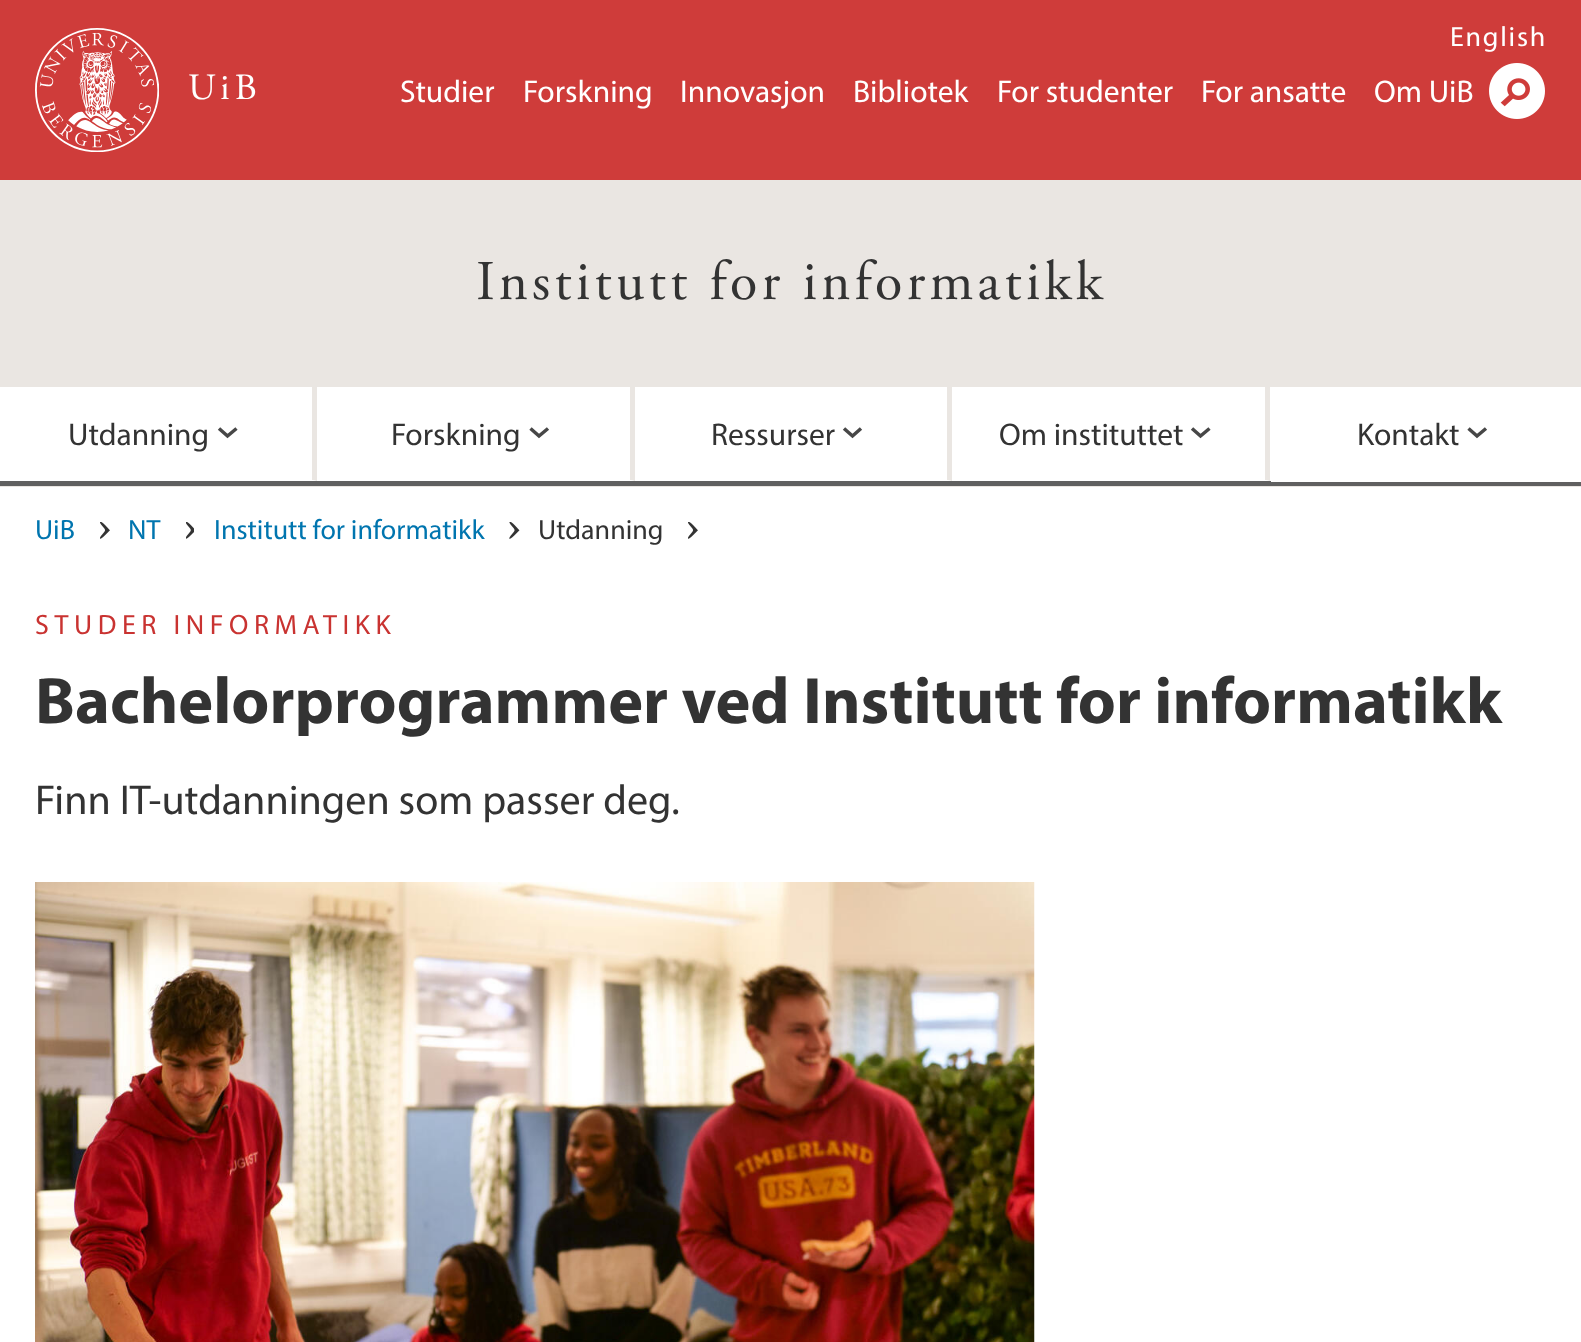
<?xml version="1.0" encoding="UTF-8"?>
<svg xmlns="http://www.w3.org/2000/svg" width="1581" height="1342">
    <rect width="100%" height="100%" fill="#FFFFFF"/>
    <rect x="0" y="0" width="1581" height="180" fill="#CF3C3A"/>
    <image x="35" y="28" width="124" height="124" href="img_01.png"/>
    <text x="188" y="99" font-family="Adobe Garamond" font-size="37" letter-spacing="5" fill="#FFFFFF">UiB</text>
    <text x="1450" y="46" font-family="Myriad" font-size="28" letter-spacing="1.75" fill="#FFFFFF">English</text>
    <text x="400" y="102" font-family="Myriad" font-size="31.5" fill="#FFFFFF">Studier</text>
    <text x="523" y="102" font-family="Myriad" font-size="31.5" fill="#FFFFFF">Forskning</text>
    <text x="680" y="102" font-family="Myriad" font-size="31.5" fill="#FFFFFF">Innovasjon</text>
    <text x="853" y="102" font-family="Myriad" font-size="31.5" fill="#FFFFFF">Bibliotek</text>
    <text x="997" y="102" font-family="Myriad" font-size="31.5" fill="#FFFFFF">For studenter</text>
    <text x="1201" y="102" font-family="Myriad" font-size="31.5" fill="#FFFFFF">For ansatte</text>
    <text x="1374" y="102" font-family="Myriad" font-size="31.5" fill="#FFFFFF">Om UiB</text>
    <image x="1489" y="63" width="56" height="56" href="img_02.png"/>
    <rect x="0" y="180" width="1581" height="207" fill="#EAE6E2"/>
    <text x="476" y="299" font-family="Adobe Garamond" font-size="56" letter-spacing="4.2" fill="#333333">Institutt for informatikk</text>
    <rect x="0" y="486" width="1581" height="1" fill="#EAE6E2"/>
    <rect x="0" y="481" width="1581" height="5" fill="#606060"/>
    <path d="M 317 387 V 481 L 312 480 V 387 Z" fill="#EAE6E2"/>
    <path d="M 317 481 H 0 V 480 H 312 Z" fill="#FFFFFF"/>
    <text x="68" y="445" font-family="Myriad" font-size="31.5" fill="#333333">Utdanning</text>
    <path d="M 236.5 428.5 L 227.5 436 L 219 428.5" fill="none" stroke="#474747" stroke-width="3.5"/>
    <path d="M 635 387 V 481 L 630 480 V 387 Z" fill="#EAE6E2"/>
    <path d="M 635 481 H 317 V 480 H 630 Z" fill="#FFFFFF"/>
    <text x="391" y="445" font-family="Myriad" font-size="31.5" fill="#333333">Forskning</text>
    <path d="M 548 428.5 L 539 436 L 530.5 428.5" fill="none" stroke="#474747" stroke-width="3.5"/>
    <path d="M 952 387 V 481 L 947 480 V 387 Z" fill="#EAE6E2"/>
    <path d="M 952 481 H 635 V 480 H 947 Z" fill="#FFFFFF"/>
    <text x="711" y="445" font-family="Myriad" font-size="31.5" fill="#333333">Ressurser</text>
    <path d="M 861 428.5 L 852.5 436 L 844 428.5" fill="none" stroke="#474747" stroke-width="3.5"/>
    <path d="M 1270 387 V 481 L 1265 480 V 387 Z" fill="#EAE6E2"/>
    <path d="M 1270 481 H 952 V 480 H 1265 Z" fill="#FFFFFF"/>
    <text x="999" y="445" font-family="Myriad" font-size="31.5" fill="#333333">Om instituttet</text>
    <path d="M 1209.5 428.5 L 1200.5 436 L 1192 428.5" fill="none" stroke="#474747" stroke-width="3.5"/>
    <rect x="1271" y="481" width="310" height="1" fill="#FFFFFF"/>
    <text x="1357" y="445" font-family="Myriad" font-size="31.5" fill="#333333">Kontakt</text>
    <path d="M 1486 428.5 L 1477 436 L 1468.5 428.5" fill="none" stroke="#474747" stroke-width="3.5"/>
    <text x="35" y="539" font-family="Myriad" font-size="28" fill="#0075AF">UiB</text>
    <image x="100" y="522" width="10" height="17" href="img_03.png"/>
    <text x="128" y="539" font-family="Myriad" font-size="28" fill="#0075AF">NT</text>
    <image x="186" y="522" width="8" height="17" href="img_04.png"/>
    <text x="214" y="539" font-family="Myriad" font-size="28" fill="#0075AF">Institutt for informatikk</text>
    <image x="509" y="522" width="11" height="17" href="img_05.png"/>
    <text x="538" y="539" font-family="Myriad" font-size="28" fill="#333333">Utdanning</text>
    <image x="688" y="522" width="10" height="17" href="img_03.png"/>
    <text x="35" y="634" font-family="Myriad" font-size="28" letter-spacing="5.6" fill="#C93331">STUDER INFORMATIKK</text>
    <text x="35" y="723" font-family="Myriad" font-size="66" font-weight="700" fill="#333333">Bachelorprogrammer ved Institutt for informatikk</text>
    <text x="35" y="814" font-family="Myriad" font-size="42" fill="#333333">Finn IT-utdanningen som passer deg.</text>
    <image x="35" y="882" width="1000" height="460" href="img_06.png"/>
</svg>
